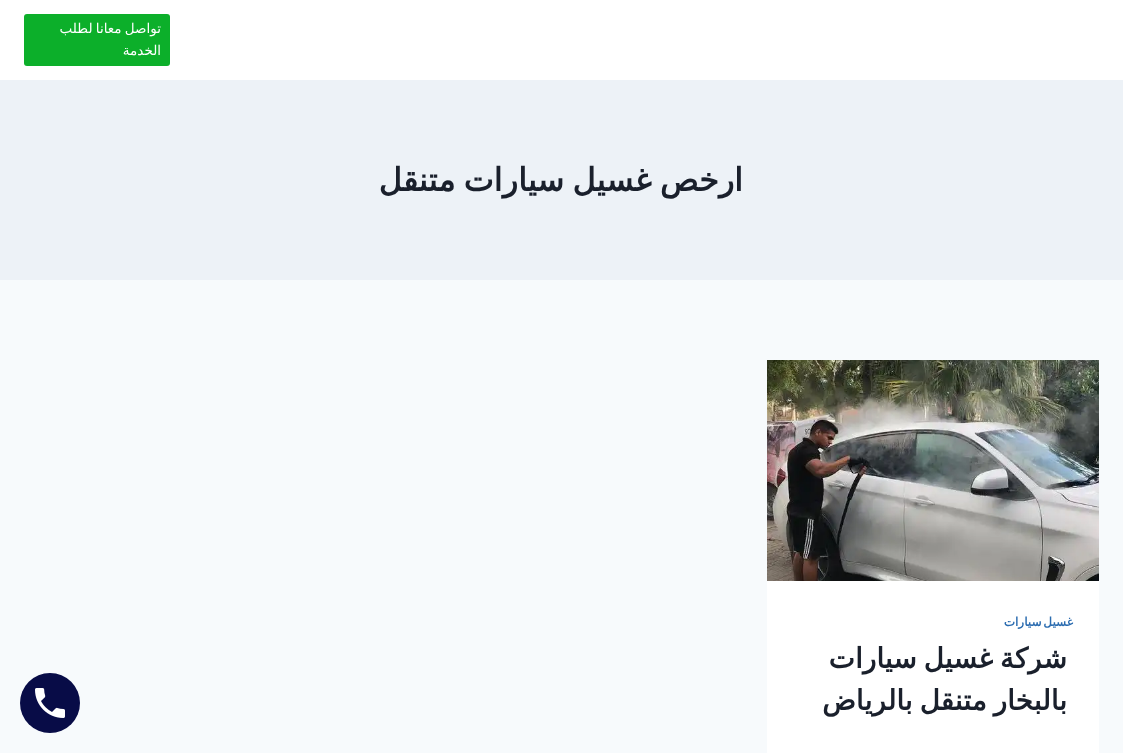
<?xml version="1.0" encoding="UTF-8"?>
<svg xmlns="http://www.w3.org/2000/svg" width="1123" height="753">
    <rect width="100%" height="100%" fill="#F7FAFC"/>
    <rect x="0" y="0" width="1123" height="80" fill="#FFFFFF"/>
    <rect x="24" y="14" width="146" height="52" rx="3" fill="#0CAF2A"/>
    <text font-family="DejaVu Sans" font-size="13.5" direction="rtl" fill="#FFFFFF">
        <tspan x="161" y="33" word-spacing="-1">تواصل معانا لطلب</tspan>
        <tspan x="161" y="55">الخدمة</tspan>
    </text>
    <rect x="0" y="80" width="1123" height="200" fill="#EDF2F7"/>
    <text x="743" y="191" word-spacing="-2" font-family="DejaVu Sans" font-size="32" font-weight="700" direction="rtl" fill="#1A202C">ارخص غسيل سيارات متنقل</text>
    <rect x="767" y="581" width="332" height="172" fill="#FFFFFF"/>
    <image x="767" y="360" width="332" height="221" href="img_01.png"/>
    <text x="1073" y="626" word-spacing="-2" font-family="DejaVu Sans" font-size="12" font-weight="700" letter-spacing="0.5" direction="rtl" fill="#2B6CB0">غسيل سيارات</text>
    <text font-family="DejaVu Sans" font-size="28" font-weight="700" direction="rtl" fill="#1A202C">
        <tspan x="1067" y="668" word-spacing="-2">شركة غسيل سيارات</tspan>
        <tspan x="1067" y="710" word-spacing="-2">بالبخار متنقل بالرياض</tspan>
    </text>
    <circle cx="50" cy="703" r="30" fill="#080C47"/>
    <image x="35" y="688" width="30" height="30" href="img_02.png"/>
</svg>
